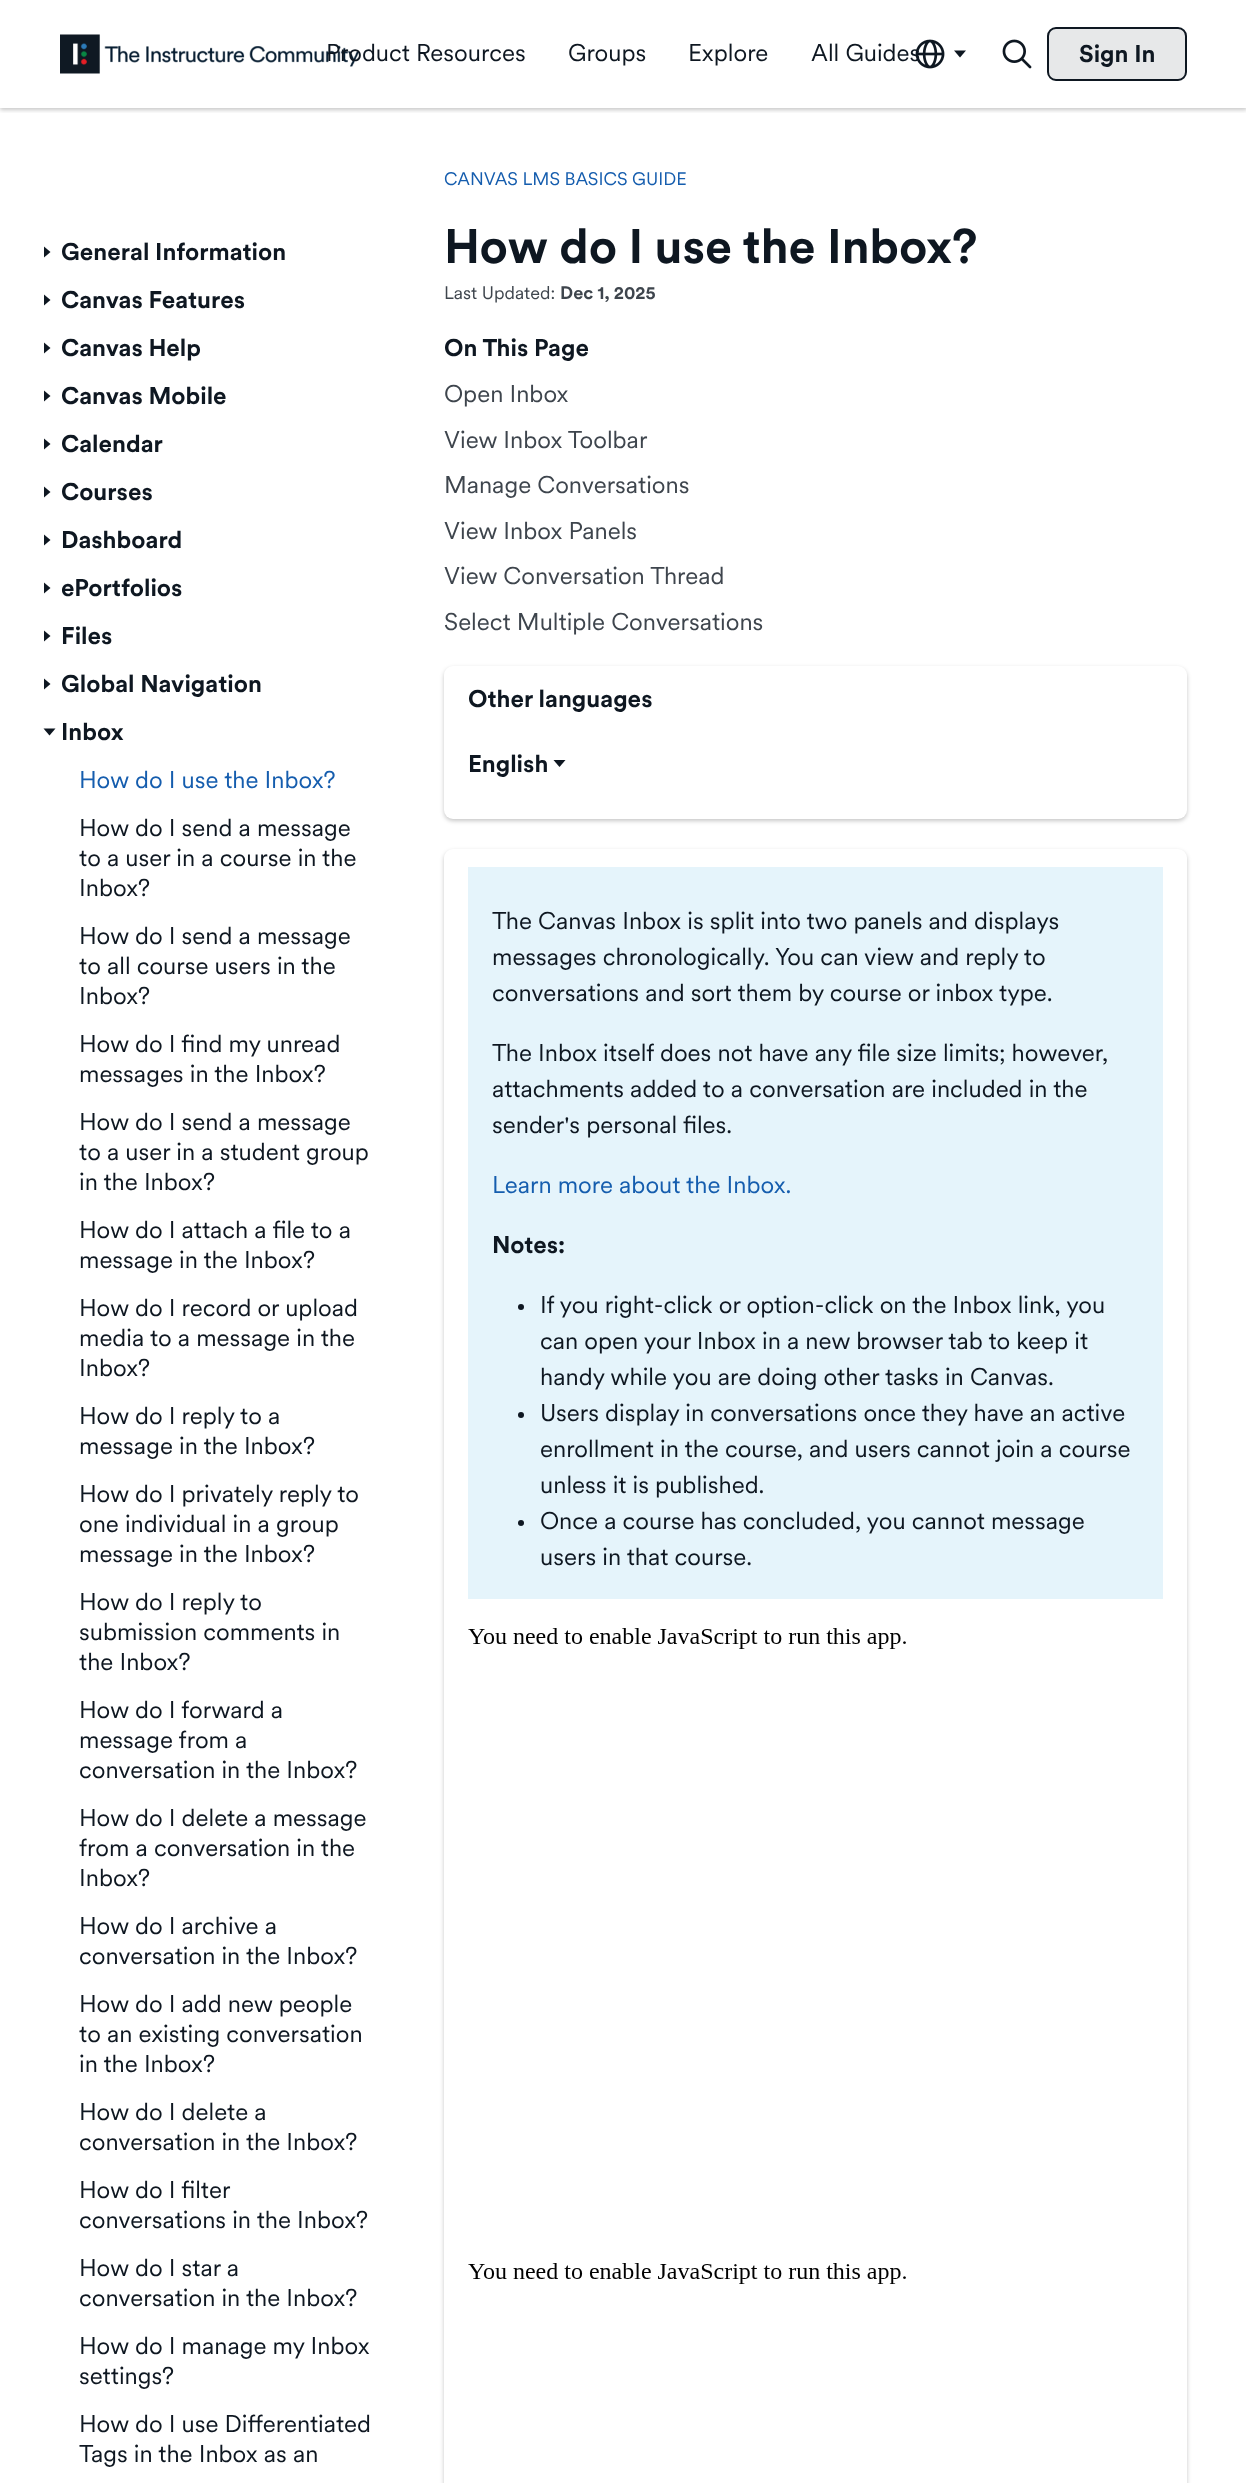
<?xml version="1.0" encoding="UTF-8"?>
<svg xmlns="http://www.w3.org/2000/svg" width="1246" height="2483">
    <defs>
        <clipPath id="clip1"><rect x="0" y="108" width="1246" height="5"/></clipPath>
        <filter id="blur1" x="-50%" y="-200%" width="200%" height="500%"><feGaussianBlur stdDeviation="2"/></filter>
        <clipPath id="clip2"><rect x="44" y="246" width="12" height="12"/></clipPath>
        <clipPath id="clip3"><rect x="62" y="228" width="322" height="48"/></clipPath>
        <clipPath id="clip4"><rect x="44" y="294" width="12" height="12"/></clipPath>
        <clipPath id="clip5"><rect x="62" y="276" width="322" height="48"/></clipPath>
        <clipPath id="clip6"><rect x="44" y="342" width="12" height="12"/></clipPath>
        <clipPath id="clip7"><rect x="62" y="324" width="322" height="48"/></clipPath>
        <clipPath id="clip8"><rect x="44" y="390" width="12" height="12"/></clipPath>
        <clipPath id="clip9"><rect x="62" y="372" width="322" height="48"/></clipPath>
        <clipPath id="clip10"><rect x="44" y="438" width="12" height="12"/></clipPath>
        <clipPath id="clip11"><rect x="62" y="420" width="322" height="48"/></clipPath>
        <clipPath id="clip12"><rect x="44" y="486" width="12" height="12"/></clipPath>
        <clipPath id="clip13"><rect x="62" y="468" width="322" height="48"/></clipPath>
        <clipPath id="clip14"><rect x="44" y="534" width="12" height="12"/></clipPath>
        <clipPath id="clip15"><rect x="44" y="582" width="12" height="12"/></clipPath>
        <clipPath id="clip16"><rect x="62" y="564" width="322" height="48"/></clipPath>
        <clipPath id="clip17"><rect x="44" y="630" width="12" height="12"/></clipPath>
        <clipPath id="clip18"><rect x="44" y="678" width="12" height="12"/></clipPath>
        <clipPath id="clip19"><rect x="62" y="660" width="322" height="48"/></clipPath>
    </defs>
    <rect width="100%" height="100%" fill="#FFFFFF"/>
    <g clip-path="url(#clip1)">
        <rect x="0" y="2" width="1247" height="108" fill="#000000" fill-opacity="0.22" filter="url(#blur1)"/>
    </g>
    <image x="60" y="34" width="300" height="40" href="img_01.png"/>
    <text x="326" y="61" font-family="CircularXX" font-size="24" fill="#0E1721">Product Resources</text>
    <text x="568" y="61" font-family="CircularXX" font-size="24" fill="#0E1721">Groups</text>
    <text x="688" y="61" font-family="CircularXX" font-size="24" fill="#0E1721">Explore</text>
    <text x="811" y="61" font-family="CircularXX" font-size="24" fill="#0E1721">All Guides</text>
    <image x="915" y="39" width="30" height="30" href="img_02.png"/>
    <path d="M 954 50.5 H 966 L 960 57.5 Z" fill="#0E1721"/>
    <image x="1002" y="39" width="30" height="30" href="img_03.png"/>
    <rect x="1048" y="28" width="138" height="52" rx="8" fill="#E7E8E9" stroke="#0E1721" stroke-width="2"/>
    <text x="1079" y="62" font-family="CircularXX" font-size="24" font-weight="700" fill="#0E1721">Sign In</text>
    <text x="444" y="185" font-family="CircularXX" font-size="18" fill="#155DAE">CANVAS LMS BASICS GUIDE</text>
    <g clip-path="url(#clip2)">
        <path d="M 43.5 258 V 246 L 50.5 252 Z" fill="#0E1721"/>
    </g>
    <g clip-path="url(#clip3)">
        <text x="61" y="260" font-family="CircularXX" font-size="24" font-weight="700" fill="#0E1721">General Information</text>
    </g>
    <g clip-path="url(#clip4)">
        <path d="M 43.5 306 V 294 L 50.5 300 Z" fill="#0E1721"/>
    </g>
    <g clip-path="url(#clip5)">
        <text x="61" y="308" font-family="CircularXX" font-size="24" font-weight="700" fill="#0E1721">Canvas Features</text>
    </g>
    <g clip-path="url(#clip6)">
        <path d="M 43.5 354 V 342 L 50.5 348 Z" fill="#0E1721"/>
    </g>
    <g clip-path="url(#clip7)">
        <text x="61" y="356" font-family="CircularXX" font-size="24" font-weight="700" fill="#0E1721">Canvas Help</text>
    </g>
    <g clip-path="url(#clip8)">
        <path d="M 43.5 402 V 390 L 50.5 396 Z" fill="#0E1721"/>
    </g>
    <g clip-path="url(#clip9)">
        <text x="61" y="404" font-family="CircularXX" font-size="24" font-weight="700" fill="#0E1721">Canvas Mobile</text>
    </g>
    <g clip-path="url(#clip10)">
        <path d="M 43.5 450 V 438 L 50.5 444 Z" fill="#0E1721"/>
    </g>
    <g clip-path="url(#clip11)">
        <text x="61" y="452" font-family="CircularXX" font-size="24" font-weight="700" fill="#0E1721">Calendar</text>
    </g>
    <g clip-path="url(#clip12)">
        <path d="M 43.5 498 V 486 L 50.5 492 Z" fill="#0E1721"/>
    </g>
    <g clip-path="url(#clip13)">
        <text x="61" y="500" font-family="CircularXX" font-size="24" font-weight="700" fill="#0E1721">Courses</text>
    </g>
    <g clip-path="url(#clip14)">
        <path d="M 43.5 546 V 534 L 50.5 540 Z" fill="#0E1721"/>
    </g>
    <text x="61" y="548" font-family="CircularXX" font-size="24" font-weight="700" fill="#0E1721">Dashboard</text>
    <g clip-path="url(#clip15)">
        <path d="M 43.5 594 V 582 L 50.5 588 Z" fill="#0E1721"/>
    </g>
    <g clip-path="url(#clip16)">
        <text x="61" y="596" font-family="CircularXX" font-size="24" font-weight="700" fill="#0E1721">ePortfolios</text>
    </g>
    <g clip-path="url(#clip17)">
        <path d="M 43.5 642 V 630 L 50.5 636 Z" fill="#0E1721"/>
    </g>
    <text x="61" y="644" font-family="CircularXX" font-size="24" font-weight="700" fill="#0E1721">Files</text>
    <g clip-path="url(#clip18)">
        <path d="M 43.5 690 V 678 L 50.5 684 Z" fill="#0E1721"/>
    </g>
    <g clip-path="url(#clip19)">
        <text x="61" y="692" font-family="CircularXX" font-size="24" font-weight="700" fill="#0E1721">Global Navigation</text>
    </g>
    <path d="M 43.5 728.5 H 55.5 L 49.5 735.5 Z" fill="#0E1721"/>
    <text x="61" y="740" font-family="CircularXX" font-size="24" font-weight="700" fill="#0E1721">Inbox</text>
    <text x="79" y="788" font-family="CircularXX" font-size="24" fill="#155DAE">How do I use the Inbox?</text>
    <text font-family="CircularXX" font-size="24" fill="#0E1721">
        <tspan x="79" y="836">How do I send a message</tspan>
        <tspan x="79" y="866">to a user in a course in the</tspan>
        <tspan x="79" y="896">Inbox?</tspan>
    </text>
    <text font-family="CircularXX" font-size="24" fill="#0E1721">
        <tspan x="79" y="944">How do I send a message</tspan>
        <tspan x="79" y="974">to all course users in the</tspan>
        <tspan x="79" y="1004">Inbox?</tspan>
    </text>
    <text font-family="CircularXX" font-size="24" fill="#0E1721">
        <tspan x="79" y="1052">How do I find my unread</tspan>
        <tspan x="79" y="1082">messages in the Inbox?</tspan>
    </text>
    <text font-family="CircularXX" font-size="24" fill="#0E1721">
        <tspan x="79" y="1130">How do I send a message</tspan>
        <tspan x="79" y="1160">to a user in a student group</tspan>
        <tspan x="79" y="1190">in the Inbox?</tspan>
    </text>
    <text font-family="CircularXX" font-size="24" fill="#0E1721">
        <tspan x="79" y="1238">How do I attach a file to a</tspan>
        <tspan x="79" y="1268">message in the Inbox?</tspan>
    </text>
    <text font-family="CircularXX" font-size="24" fill="#0E1721">
        <tspan x="79" y="1316">How do I record or upload</tspan>
        <tspan x="79" y="1346">media to a message in the</tspan>
        <tspan x="79" y="1376">Inbox?</tspan>
    </text>
    <text font-family="CircularXX" font-size="24" fill="#0E1721">
        <tspan x="79" y="1424">How do I reply to a</tspan>
        <tspan x="79" y="1454">message in the Inbox?</tspan>
    </text>
    <text font-family="CircularXX" font-size="24" fill="#0E1721">
        <tspan x="79" y="1502">How do I privately reply to</tspan>
        <tspan x="79" y="1532">one individual in a group</tspan>
        <tspan x="79" y="1562">message in the Inbox?</tspan>
    </text>
    <text font-family="CircularXX" font-size="24" fill="#0E1721">
        <tspan x="79" y="1610">How do I reply to</tspan>
        <tspan x="79" y="1640">submission comments in</tspan>
        <tspan x="79" y="1670">the Inbox?</tspan>
    </text>
    <text font-family="CircularXX" font-size="24" fill="#0E1721">
        <tspan x="79" y="1718">How do I forward a</tspan>
        <tspan x="79" y="1748">message from a</tspan>
        <tspan x="79" y="1778">conversation in the Inbox?</tspan>
    </text>
    <text font-family="CircularXX" font-size="24" fill="#0E1721">
        <tspan x="79" y="1826">How do I delete a message</tspan>
        <tspan x="79" y="1856">from a conversation in the</tspan>
        <tspan x="79" y="1886">Inbox?</tspan>
    </text>
    <text font-family="CircularXX" font-size="24" fill="#0E1721">
        <tspan x="79" y="1934">How do I archive a</tspan>
        <tspan x="79" y="1964">conversation in the Inbox?</tspan>
    </text>
    <text font-family="CircularXX" font-size="24" fill="#0E1721">
        <tspan x="79" y="2012">How do I add new people</tspan>
        <tspan x="79" y="2042">to an existing conversation</tspan>
        <tspan x="79" y="2072">in the Inbox?</tspan>
    </text>
    <text font-family="CircularXX" font-size="24" fill="#0E1721">
        <tspan x="79" y="2120">How do I delete a</tspan>
        <tspan x="79" y="2150">conversation in the Inbox?</tspan>
    </text>
    <text font-family="CircularXX" font-size="24" fill="#0E1721">
        <tspan x="79" y="2198">How do I filter</tspan>
        <tspan x="79" y="2228">conversations in the Inbox?</tspan>
    </text>
    <text font-family="CircularXX" font-size="24" fill="#0E1721">
        <tspan x="79" y="2276">How do I star a</tspan>
        <tspan x="79" y="2306">conversation in the Inbox?</tspan>
    </text>
    <text font-family="CircularXX" font-size="24" fill="#0E1721">
        <tspan x="79" y="2354">How do I manage my Inbox</tspan>
        <tspan x="79" y="2384">settings?</tspan>
    </text>
    <text font-family="CircularXX" font-size="24" fill="#0E1721">
        <tspan x="79" y="2432">How do I use Differentiated</tspan>
        <tspan x="79" y="2462">Tags in the Inbox as an</tspan>
    </text>
    <text x="444" y="263" font-family="CircularXX" font-size="48" font-weight="700" fill="#0E1721">How do I use the Inbox?</text>
    <text x="444" y="299" font-family="CircularXX" font-size="18" fill="#3E454D">Last Updated:</text>
    <text x="560" y="299" font-family="CircularXX" font-size="18" font-weight="700" fill="#3E454D">Dec 1, 2025</text>
    <text x="444" y="356" font-family="CircularXX" font-size="24" font-weight="700" fill="#0E1721">On This Page</text>
    <text font-family="CircularXX" font-size="24" fill="#3E454D">
        <tspan x="444" y="402">Open Inbox</tspan>
        <tspan x="444" y="448">View Inbox Toolbar</tspan>
        <tspan x="444" y="493">Manage Conversations</tspan>
        <tspan x="444" y="539">View Inbox Panels</tspan>
        <tspan x="444" y="584">View Conversation Thread</tspan>
        <tspan x="444" y="630">Select Multiple Conversations</tspan>
    </text>
    <rect x="444" y="668" width="743" height="153" rx="9" fill="#000000" fill-opacity="0.22" filter="url(#blur1)"/>
    <rect x="444" y="666" width="743" height="153" rx="9" fill="#FFFFFF"/>
    <text x="468" y="707" font-family="CircularXX" font-size="24" font-weight="700" fill="#0E1721">Other languages</text>
    <text x="468" y="772" font-family="CircularXX" font-size="24" font-weight="700" fill="#0E1721">English</text>
    <path d="M 553.5 760 H 565.5 L 559.5 767 Z" fill="#0E1721"/>
    <rect x="444" y="851" width="743" height="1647" rx="9" fill="#000000" fill-opacity="0.22" filter="url(#blur1)"/>
    <rect x="444" y="849" width="743" height="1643" rx="9" fill="#FFFFFF"/>
    <rect x="468" y="867" width="695" height="732" fill="#E5F4FB"/>
    <text font-family="CircularXX" font-size="24" fill="#0E1721">
        <tspan x="492" y="929">The Canvas Inbox is split into two panels and displays</tspan>
        <tspan x="492" y="965">messages chronologically. You can view and reply to</tspan>
        <tspan x="492" y="1001">conversations and sort them by course or inbox type.</tspan>
    </text>
    <text font-family="CircularXX" font-size="24" fill="#0E1721">
        <tspan x="492" y="1061">The Inbox itself does not have any file size limits; however,</tspan>
        <tspan x="492" y="1097">attachments added to a conversation are included in the</tspan>
        <tspan x="492" y="1133">sender's personal files.</tspan>
    </text>
    <text x="492" y="1193" font-family="CircularXX" font-size="24" fill="#155DAE">Learn more about the Inbox.</text>
    <text x="492" y="1253" font-family="CircularXX" font-size="24" font-weight="700" fill="#0E1721">Notes:</text>
    <circle cx="521" cy="1307" r="3" fill="#0E1721"/>
    <text font-family="CircularXX" font-size="24" fill="#0E1721">
        <tspan x="540" y="1313">If you right-click or option-click on the Inbox link, you</tspan>
        <tspan x="540" y="1349">can open your Inbox in a new browser tab to keep it</tspan>
        <tspan x="540" y="1385">handy while you are doing other tasks in Canvas.</tspan>
    </text>
    <circle cx="521" cy="1415" r="3" fill="#0E1721"/>
    <text font-family="CircularXX" font-size="24" fill="#0E1721">
        <tspan x="540" y="1421">Users display in conversations once they have an active</tspan>
        <tspan x="540" y="1457">enrollment in the course, and users cannot join a course</tspan>
        <tspan x="540" y="1493">unless it is published.</tspan>
    </text>
    <circle cx="521" cy="1523" r="3" fill="#0E1721"/>
    <text font-family="CircularXX" font-size="24" fill="#0E1721">
        <tspan x="540" y="1529">Once a course has concluded, you cannot message</tspan>
        <tspan x="540" y="1565">users in that course.</tspan>
    </text>
    <image x="468" y="1628" width="438" height="21" href="img_04.png"/>
    <image x="468" y="2263" width="438" height="21" href="img_04.png"/>
</svg>
